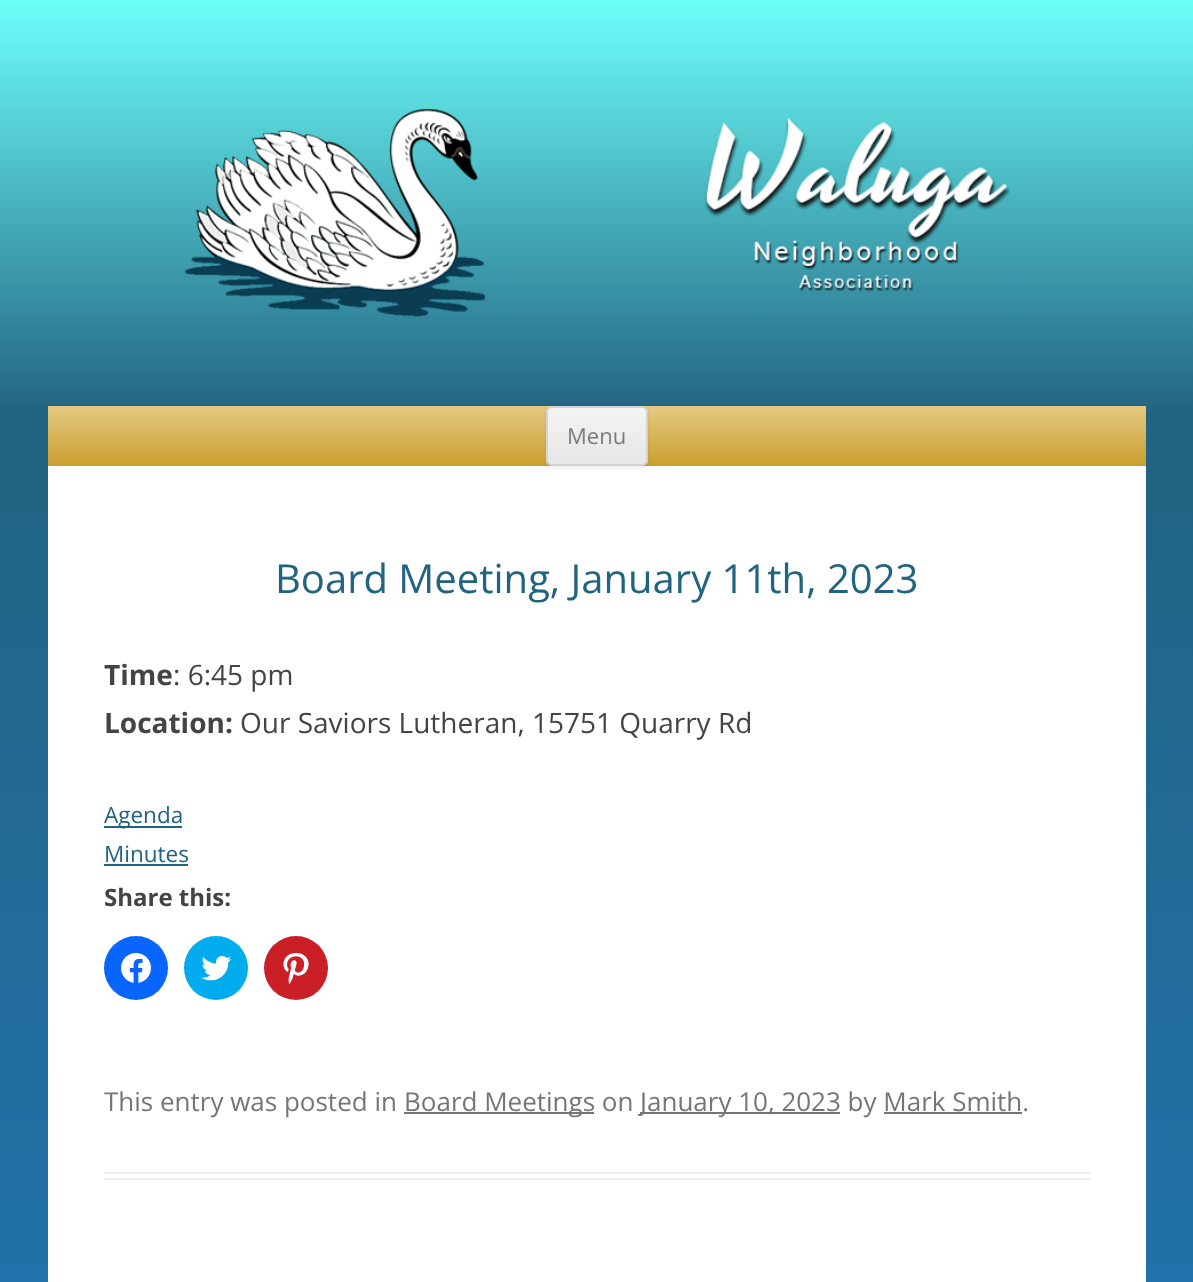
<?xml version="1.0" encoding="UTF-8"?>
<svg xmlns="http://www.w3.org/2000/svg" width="1193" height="1282">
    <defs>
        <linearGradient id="g1" gradientUnits="userSpaceOnUse" x1="597" y1="0" x2="597" y2="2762"><stop offset="0" stop-color="#6DFFFA"/><stop offset="0.15" stop-color="#226380"/><stop offset="0.7" stop-color="#207CCA"/><stop offset="1" stop-color="#143A4C"/></linearGradient>
        <linearGradient id="g2" gradientUnits="userSpaceOnUse" x1="597" y1="406" x2="597" y2="466"><stop offset="0" stop-color="#E5CA84"/><stop offset="1" stop-color="#CB9F2F"/></linearGradient>
        <filter id="blur1" x="-50%" y="-200%" width="200%" height="500%"><feGaussianBlur stdDeviation="2"/></filter>
        <clipPath id="clip1"><rect x="546" y="406" width="102" height="60" rx="6"/></clipPath>
        <linearGradient id="g3" gradientUnits="userSpaceOnUse" x1="597" y1="408" x2="597" y2="464"><stop offset="0" stop-color="#F4F4F4"/><stop offset="1" stop-color="#E6E6E6"/></linearGradient>
    </defs>
    <rect width="100%" height="100%" fill="#FFFFFF"/>
    <rect x="0" y="0" width="1193" height="1282" fill="url(#g1)"/>
    <image x="185" y="109" width="825" height="208" href="img_01.png"/>
    <rect x="48" y="406" width="1098" height="60" fill="url(#g2)"/>
    <rect x="48" y="466" width="1098" height="816" fill="#FFFFFF"/>
    <rect x="546" y="408" width="102" height="60" rx="6" fill="#404040" fill-opacity="0.1" filter="url(#blur1)"/>
    <g clip-path="url(#clip1)">
        <rect x="546" y="408" width="102" height="56" fill="url(#g3)"/>
    </g>
    <rect x="547" y="407" width="100" height="58" rx="5" fill="none" stroke="#D2D2D2" stroke-width="2"/>
    <text x="567" y="444" font-family="Open Sans" font-size="22" fill="#7C7C7C">Menu</text>
    <rect x="104" y="1172" width="986" height="2" fill="#EDEDED"/>
    <rect x="104" y="1178" width="986" height="2" fill="#EDEDED"/>
    <text x="275" y="593" font-family="Open Sans" font-size="40" fill="#226480">Board Meeting, January 11th, 2023</text>
    <text x="104" y="685" font-family="Open Sans" font-size="28" font-weight="700" fill="#444444">Time</text>
    <text x="173" y="685" font-family="Open Sans" font-size="28" fill="#444444">: 6:45 pm</text>
    <text x="104" y="733" font-family="Open Sans" font-size="28" font-weight="700" fill="#444444">Location:</text>
    <text x="240" y="733" font-family="Open Sans" font-size="28" fill="#444444">Our Saviors Lutheran, 15751 Quarry Rd</text>
    <rect x="104" y="826" width="78" height="2" fill="#226480"/>
    <text font-family="Open Sans" font-size="22.5" fill="#226480">
        <tspan x="104" y="823">Agenda</tspan>
        <tspan x="104" y="862">Minutes</tspan>
    </text>
    <rect x="104" y="864" width="84" height="2" fill="#226480"/>
    <text x="104" y="906" font-family="Open Sans" font-size="24" font-weight="700" fill="#444444">Share this:</text>
    <circle cx="136" cy="968" r="32" fill="#0866FF"/>
    <image x="121" y="953" width="30" height="30" href="img_02.png"/>
    <circle cx="216" cy="968" r="32" fill="#00ACEE"/>
    <image x="201" y="956" width="31" height="25" href="img_03.png"/>
    <circle cx="296" cy="968" r="32" fill="#CA1F27"/>
    <image x="283" y="953" width="26" height="32" href="img_04.png"/>
    <text x="104" y="1111" font-family="Open Sans" font-size="26" fill="#757575">This entry was posted in</text>
    <rect x="404" y="1112" width="190" height="2" fill="#757575"/>
    <text x="404" y="1111" font-family="Open Sans" font-size="26" fill="#757575">Board Meetings on</text>
    <rect x="640" y="1112" width="200" height="2" fill="#757575"/>
    <text x="640" y="1111" font-family="Open Sans" font-size="26" fill="#757575">January 10, 2023 by Mark Smith.</text>
    <rect x="884" y="1112" width="138" height="2" fill="#757575"/>
</svg>
